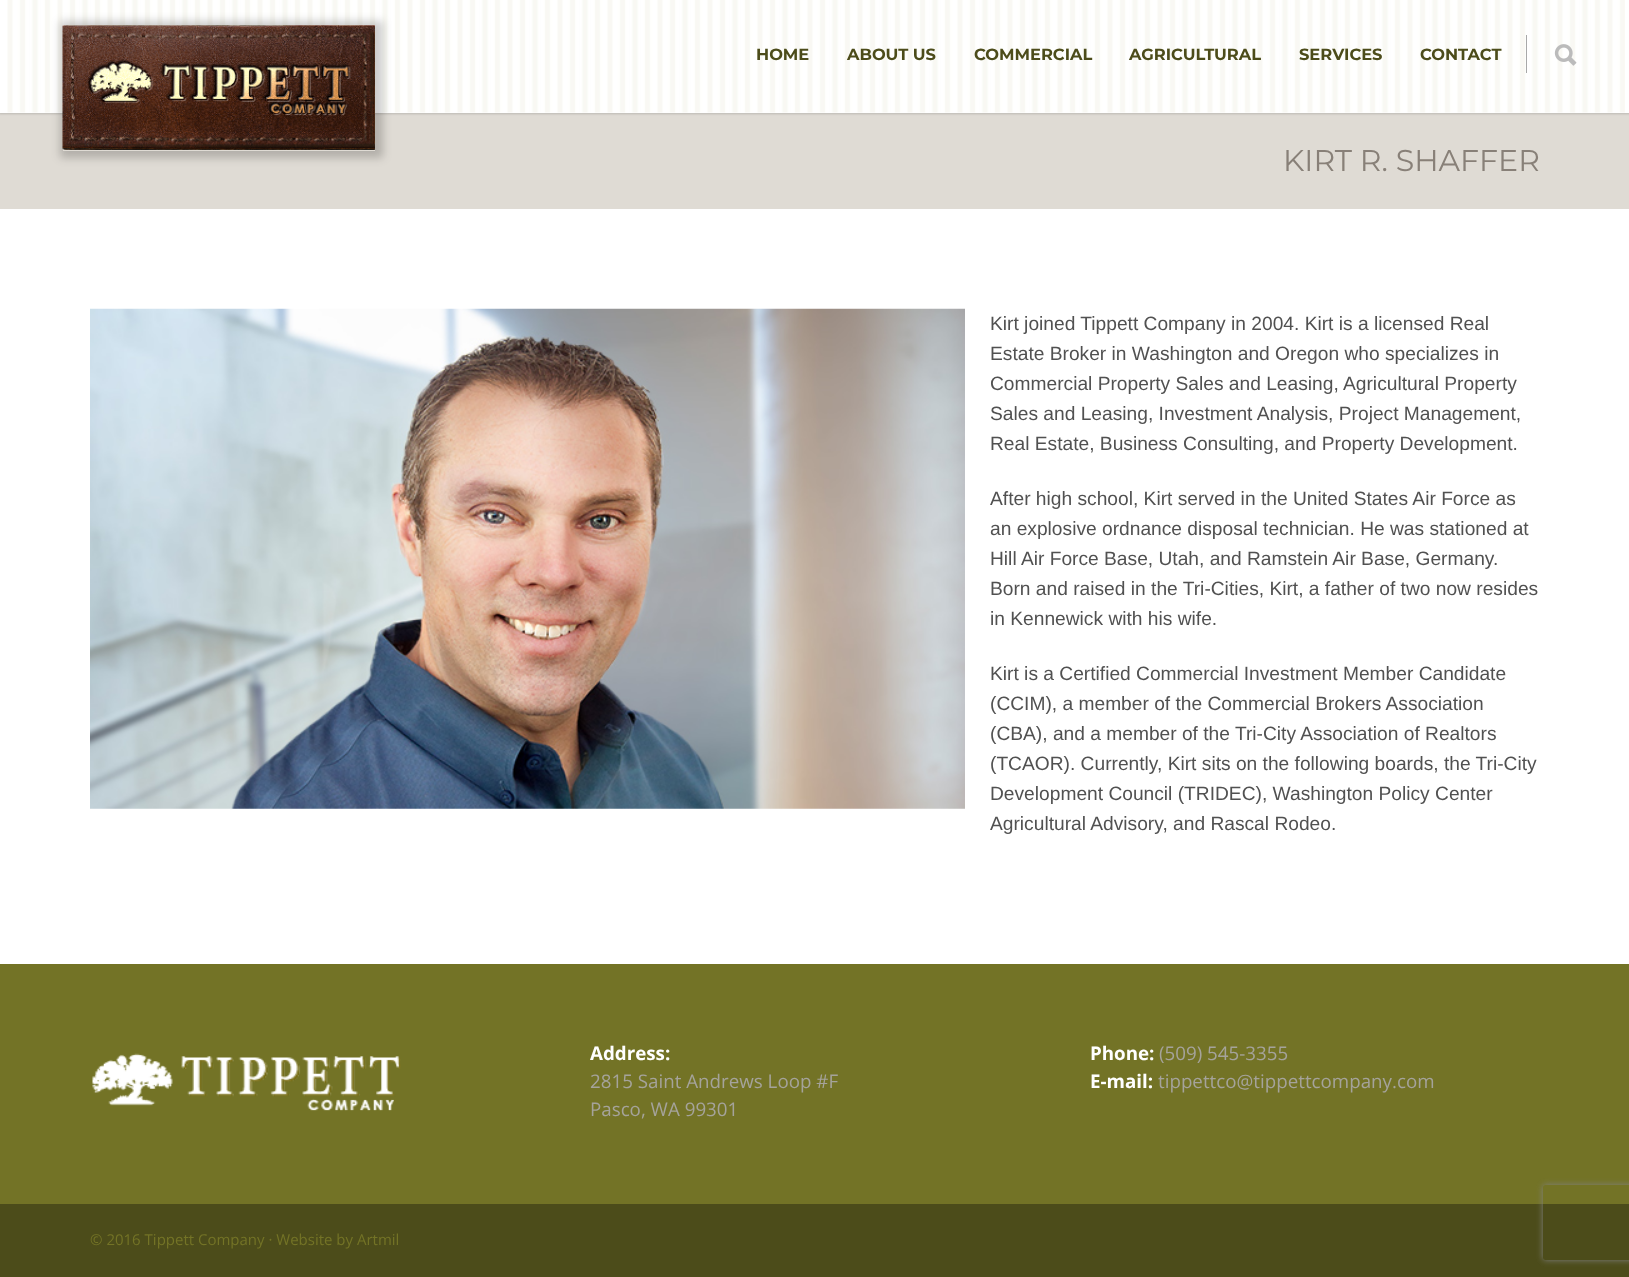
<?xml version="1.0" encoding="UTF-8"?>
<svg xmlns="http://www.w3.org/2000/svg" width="1629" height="1277">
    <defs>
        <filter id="blur1" x="-50%" y="-200%" width="200%" height="500%"><feGaussianBlur stdDeviation="1"/></filter>
        <clipPath id="clip1"><path d="M 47 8 H 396 V 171 H 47 Z M 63 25 H 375 V 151 H 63 Z" clip-rule="evenodd"/></clipPath>
        <filter id="blur2" x="-50%" y="-200%" width="200%" height="500%"><feGaussianBlur stdDeviation="4"/></filter>
        <clipPath id="clip2"><path d="M 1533 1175 H 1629 V 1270 H 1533 Z M 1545.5 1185 H 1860.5 C 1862 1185 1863 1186 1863 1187.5 V 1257.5 C 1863 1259 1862 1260 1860.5 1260 H 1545.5 C 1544 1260 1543 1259 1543 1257.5 V 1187.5 C 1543 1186 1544 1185 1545.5 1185 Z" clip-rule="evenodd"/></clipPath>
        <filter id="blur3" x="-50%" y="-200%" width="200%" height="500%"><feGaussianBlur stdDeviation="3"/></filter>
    </defs>
    <rect width="100%" height="100%" fill="#4C4C1A"/>
    <rect x="0" y="209" width="1629" height="755" fill="#FFFFFF"/>
    <rect x="0" y="113" width="1629" height="96" fill="#DFDBD4"/>
    <rect x="-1" y="-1" width="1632" height="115" fill="#000000" fill-opacity="0.16" filter="url(#blur1)"/>
    <rect x="0" y="0" width="1629" height="113" fill="#FFFFFF"/>
    <image x="7" y="0" width="1618" height="113" href="img_01.png"/>
    <g clip-path="url(#clip1)">
        <rect x="60" y="21" width="323" height="137" fill="#0A0A00" fill-opacity="0.2" filter="url(#blur2)"/>
    </g>
    <image x="62" y="25" width="313" height="125" href="img_02.png"/>
    <text x="756" y="60" font-family="Montserrat" font-size="16.25" font-weight="700" fill="#4C4C1A">HOME</text>
    <text x="847" y="60" font-family="Montserrat" font-size="16.25" font-weight="700" fill="#4C4C1A">ABOUT US</text>
    <text x="974" y="60" font-family="Montserrat" font-size="16.25" font-weight="700" fill="#4C4C1A">COMMERCIAL</text>
    <text x="1129" y="60" font-family="Montserrat" font-size="16.25" font-weight="700" fill="#4C4C1A">AGRICULTURAL</text>
    <text x="1299" y="60" font-family="Montserrat" font-size="16.25" font-weight="700" fill="#4C4C1A">SERVICES</text>
    <text x="1420" y="60" font-family="Montserrat" font-size="16.25" font-weight="700" fill="#4C4C1A">CONTACT</text>
    <rect x="1526" y="35" width="1" height="38" fill="#A8A8A8"/>
    <image x="1554" y="44" width="23" height="22" href="img_03.png"/>
    <text x="1283" y="171" font-family="Montserrat" font-size="30" fill="#888078">KIRT R. SHAFFER</text>
    <image x="90" y="308" width="875" height="501" href="img_04.png"/>
    <text font-family="Liberation Sans" font-size="19.2" fill="#515151">
        <tspan x="990" y="330">Kirt joined Tippett Company in 2004. Kirt is a licensed Real</tspan>
        <tspan x="990" y="360">Estate Broker in Washington and Oregon who specializes in</tspan>
        <tspan x="990" y="390">Commercial Property Sales and Leasing, Agricultural Property</tspan>
        <tspan x="990" y="420">Sales and Leasing, Investment Analysis, Project Management,</tspan>
        <tspan x="990" y="450">Real Estate, Business Consulting, and Property Development.</tspan>
    </text>
    <text font-family="Liberation Sans" font-size="19.2" fill="#515151">
        <tspan x="990" y="505">After high school, Kirt served in the United States Air Force as</tspan>
        <tspan x="990" y="535">an explosive ordnance disposal technician. He was stationed at</tspan>
        <tspan x="990" y="565">Hill Air Force Base, Utah, and Ramstein Air Base, Germany.</tspan>
        <tspan x="990" y="595">Born and raised in the Tri-Cities, Kirt, a father of two now resides</tspan>
        <tspan x="990" y="625">in Kennewick with his wife.</tspan>
    </text>
    <text font-family="Liberation Sans" font-size="19.2" fill="#515151">
        <tspan x="990" y="680">Kirt is a Certified Commercial Investment Member Candidate</tspan>
        <tspan x="990" y="710">(CCIM), a member of the Commercial Brokers Association</tspan>
        <tspan x="990" y="740">(CBA), and a member of the Tri-City Association of Realtors</tspan>
        <tspan x="990" y="770">(TCAOR). Currently, Kirt sits on the following boards, the Tri-City</tspan>
        <tspan x="990" y="800">Development Council (TRIDEC), Washington Policy Center</tspan>
        <tspan x="990" y="830">Agricultural Advisory, and Rascal Rodeo.</tspan>
    </text>
    <rect x="0" y="964" width="1629" height="240" fill="#737326"/>
    <image x="92" y="1053" width="309" height="58" href="img_05.png"/>
    <text x="590" y="1060" font-family="Open Sans" font-size="18.75" font-weight="700" fill="#FFFFFF">Address:</text>
    <text font-family="Open Sans" font-size="18.75" fill="#A5A39B">
        <tspan x="590" y="1088">2815 Saint Andrews Loop #F</tspan>
        <tspan x="590" y="1116">Pasco, WA 99301</tspan>
    </text>
    <text x="1090" y="1060" font-family="Open Sans" font-size="18.75" font-weight="700" fill="#FFFFFF">Phone:</text>
    <text x="1159" y="1060" font-family="Open Sans" font-size="18.75" fill="#A5A39B">(509) 545-3355</text>
    <text x="1090" y="1088" font-family="Open Sans" font-size="18.75" font-weight="700" fill="#FFFFFF">E-mail:</text>
    <text x="1158" y="1088" font-family="Open Sans" font-size="18.75" fill="#A5A39B">tippettco@tippettcompany.com</text>
    <text x="90" y="1245" font-family="Open Sans" font-size="15" fill="#737326">© 2016 Tippett Company · Website by Artmil</text>
    <g clip-path="url(#clip2)">
        <rect x="1543" y="1185" width="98" height="75" rx="2.5" fill="#808080" filter="url(#blur3)"/>
    </g>
</svg>
